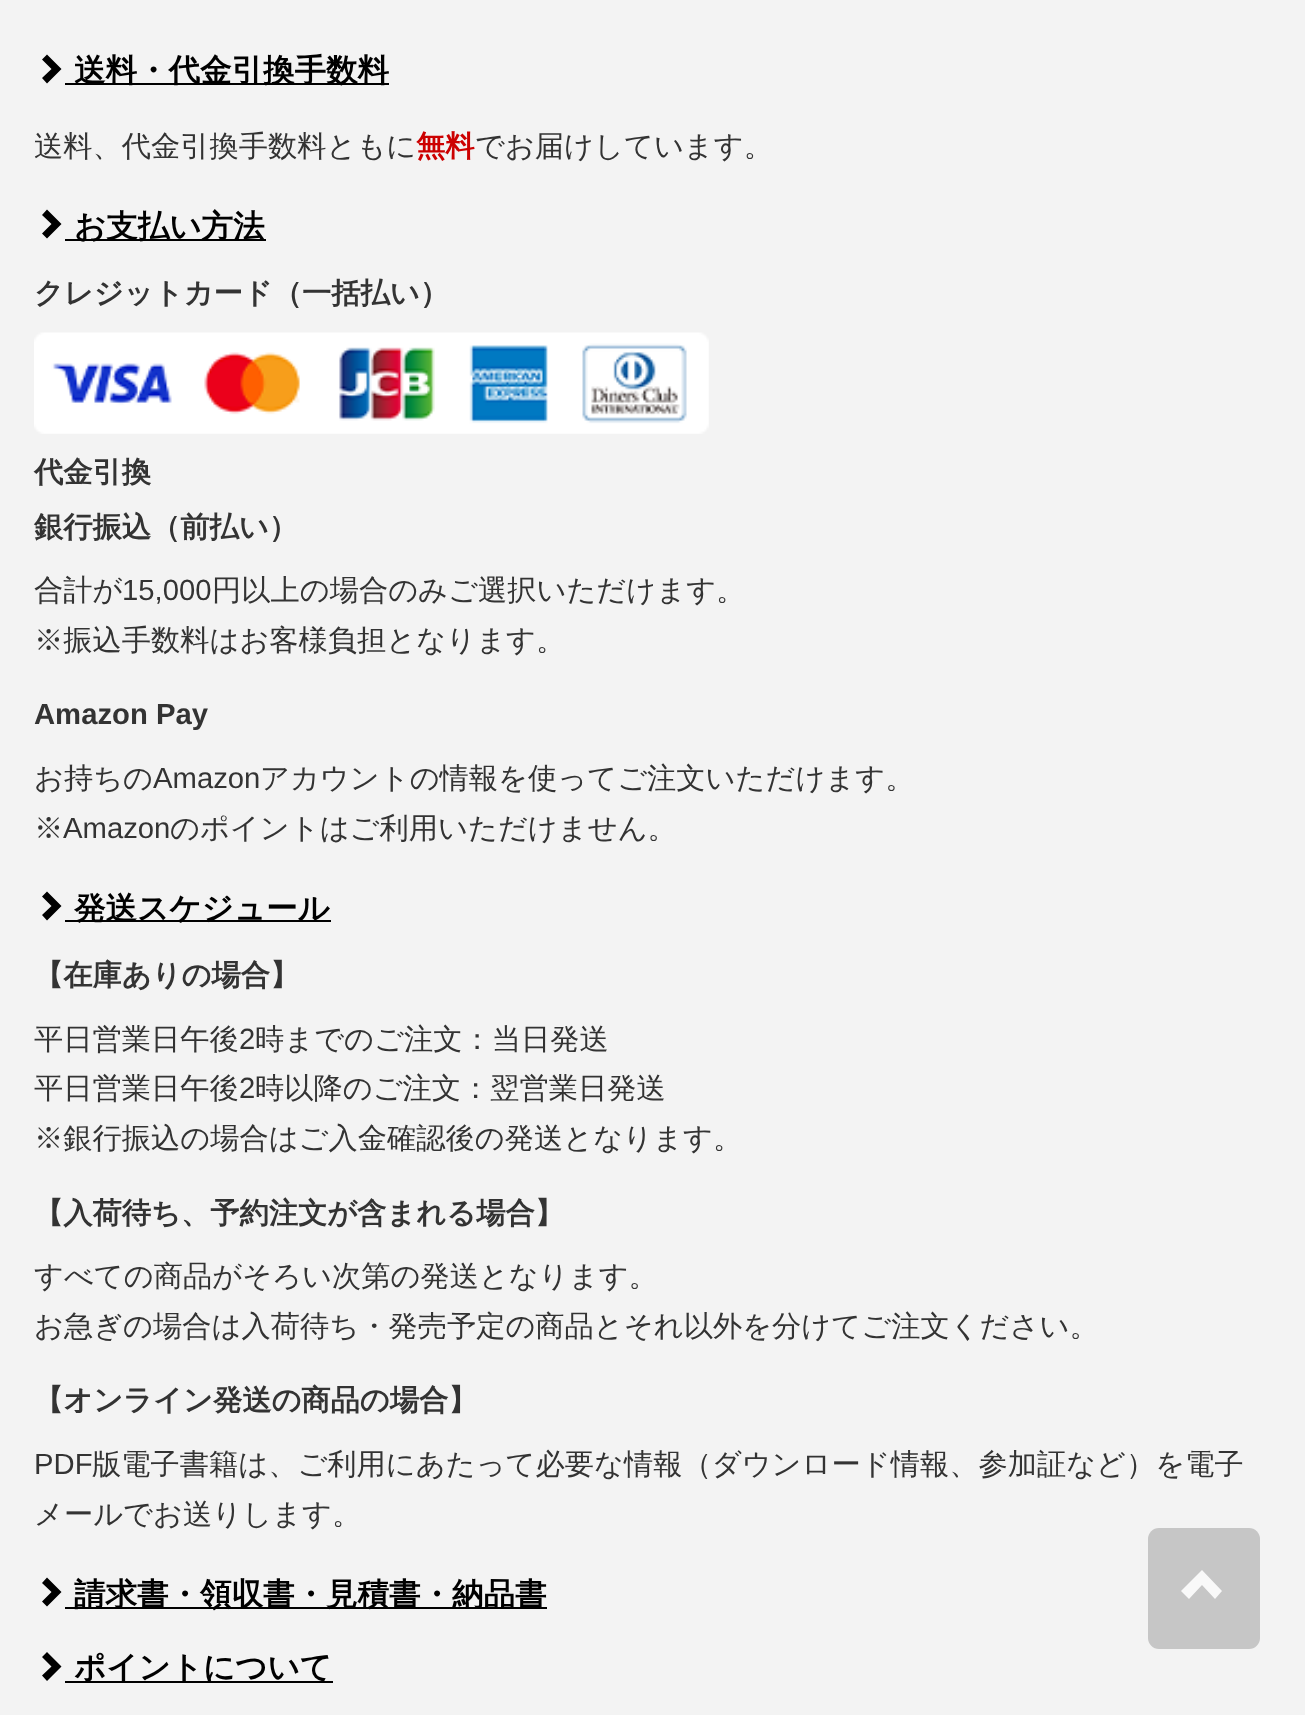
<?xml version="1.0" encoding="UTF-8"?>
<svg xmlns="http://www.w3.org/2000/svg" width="1305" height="1715">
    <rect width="100%" height="100%" fill="#F3F3F3"/>
    <path d="M 61.5 69 L 47 83.5 L 42 78 L 51.5 69 L 42 59.5 L 47 54.5 Z" fill="#000000"/>
    <rect x="65" y="83" width="324" height="2" fill="#000000"/>
    <text x="74" y="81" font-family="WenQuanYi Zen Hei" font-size="31.5" font-weight="700" fill="#000000">送料・代金引換手数料</text>
    <text x="34" y="156" font-family="WenQuanYi Zen Hei" font-size="29.25" font-weight="500" fill="#333333">送料、代金引換手数料ともに</text>
    <text x="416" y="156" font-family="WenQuanYi Zen Hei" font-size="29.25" font-weight="700" fill="#CC0000">無料</text>
    <text x="475" y="156" font-family="WenQuanYi Zen Hei" font-size="29.25" font-weight="500" fill="#333333">でお届けしています。</text>
    <path d="M 61.5 224 L 47 238.5 L 42 233.5 L 51.5 224 L 42 215 L 47 209.5 Z" fill="#000000"/>
    <rect x="65" y="239" width="201" height="2" fill="#000000"/>
    <text x="74" y="237" font-family="WenQuanYi Zen Hei" font-size="31.5" font-weight="700" fill="#000000">お支払い方法</text>
    <text x="34" y="303" font-family="WenQuanYi Zen Hei" font-size="29.25" font-weight="700" fill="#333333">クレジットカード（一括払い）</text>
    <image x="34" y="332" width="675" height="102" href="img_01.png"/>
    <text font-family="WenQuanYi Zen Hei" font-size="29.25" font-weight="700" fill="#333333">
        <tspan x="34" y="482">代金引換</tspan>
        <tspan x="34" y="537">銀行振込（前払い）</tspan>
    </text>
    <text x="34" y="600" font-family="WenQuanYi Zen Hei" font-size="29.25" font-weight="500" fill="#333333">合計が</text>
    <text x="122" y="600" font-family="Liberation Sans" font-size="29.25" fill="#333333">15,000</text>
    <text x="212" y="600" font-family="WenQuanYi Zen Hei" font-size="29.25" font-weight="500" fill="#333333">円以上の場合のみご選択いただけます。</text>
    <text x="34" y="650" font-family="WenQuanYi Zen Hei" font-size="29.25" font-weight="500" fill="#333333">※振込手数料はお客様負担となります。</text>
    <text x="34" y="724" font-family="Liberation Sans" font-size="29.25" font-weight="700" fill="#333333">Amazon Pay</text>
    <text x="34" y="788" font-family="WenQuanYi Zen Hei" font-size="29.25" font-weight="500" fill="#333333">お持ちの</text>
    <text x="153" y="788" font-family="Liberation Sans" font-size="29.25" fill="#333333">Amazon</text>
    <text x="260" y="788" font-family="WenQuanYi Zen Hei" font-size="29.25" font-weight="500" fill="#333333">アカウントの情報を使ってご注文いただけます。</text>
    <text x="34" y="838" font-family="WenQuanYi Zen Hei" font-size="29.25" font-weight="500" fill="#333333">※</text>
    <text x="63" y="838" font-family="Liberation Sans" font-size="29.25" fill="#333333">Amazon</text>
    <text x="170" y="838" font-family="WenQuanYi Zen Hei" font-size="29.25" font-weight="500" fill="#333333">のポイントはご利用いただけません。</text>
    <path d="M 61.5 906 L 47 920.5 L 42 915 L 51.5 906 L 42 896.5 L 47 891.5 Z" fill="#000000"/>
    <rect x="65" y="920" width="266" height="2" fill="#000000"/>
    <text x="74" y="919" font-family="WenQuanYi Zen Hei" font-size="31.5" font-weight="700" fill="#000000">発送スケジュール</text>
    <text x="34" y="985" font-family="WenQuanYi Zen Hei" font-size="29.25" font-weight="700" fill="#333333">【在庫ありの場合】</text>
    <text x="34" y="1049" font-family="WenQuanYi Zen Hei" font-size="29.25" font-weight="500" fill="#333333">平日営業日午後</text>
    <text x="239" y="1049" font-family="Liberation Sans" font-size="29.25" fill="#333333">2</text>
    <text x="255" y="1049" font-family="WenQuanYi Zen Hei" font-size="29.25" font-weight="500" fill="#333333">時までのご注文：当日発送</text>
    <text x="34" y="1098" font-family="WenQuanYi Zen Hei" font-size="29.25" font-weight="500" fill="#333333">平日営業日午後</text>
    <text x="239" y="1098" font-family="Liberation Sans" font-size="29.25" fill="#333333">2</text>
    <text x="255" y="1098" font-family="WenQuanYi Zen Hei" font-size="29.25" font-weight="500" fill="#333333">時以降のご注文：翌営業日発送</text>
    <text x="34" y="1148" font-family="WenQuanYi Zen Hei" font-size="29.25" font-weight="500" fill="#333333">※銀行振込の場合はご入金確認後の発送となります。</text>
    <text x="34" y="1223" font-family="WenQuanYi Zen Hei" font-size="29.25" font-weight="700" fill="#333333">【入荷待ち、予約注文が含まれる場合】</text>
    <text font-family="WenQuanYi Zen Hei" font-size="29.25" font-weight="500" fill="#333333">
        <tspan x="34" y="1286">すべての商品がそろい次第の発送となります。</tspan>
        <tspan x="34" y="1336">お急ぎの場合は入荷待ち・発売予定の商品とそれ以外を分けてご注文ください。</tspan>
    </text>
    <text x="34" y="1410" font-family="WenQuanYi Zen Hei" font-size="29.25" font-weight="700" fill="#333333">【オンライン発送の商品の場合】</text>
    <text x="34" y="1474" font-family="Liberation Sans" font-size="29.25" fill="#333333">PDF</text>
    <text x="92" y="1474" font-family="WenQuanYi Zen Hei" font-size="29.25" font-weight="500" fill="#333333">版電子書籍は、ご利用にあたって必要な情報（ダウンロード情報、参加証など）を電子</text>
    <text x="34" y="1524" font-family="WenQuanYi Zen Hei" font-size="29.25" font-weight="500" fill="#333333">メールでお送りします。</text>
    <path d="M 61.5 1592 L 47 1606.5 L 42 1601.5 L 51.5 1592 L 42 1583 L 47 1577.5 Z" fill="#000000"/>
    <rect x="65" y="1607" width="482" height="2" fill="#000000"/>
    <text x="74" y="1605" font-family="WenQuanYi Zen Hei" font-size="31.5" font-weight="700" fill="#000000">請求書・領収書・見積書・納品書</text>
    <path d="M 61.5 1666.5 L 47 1681 L 42 1675.5 L 51.5 1666.5 L 42 1657 L 47 1652 Z" fill="#000000"/>
    <rect x="65" y="1681" width="268" height="2" fill="#000000"/>
    <text x="74" y="1678" font-family="WenQuanYi Zen Hei" font-size="31.5" font-weight="700" fill="#000000">ポイントについて</text>
    <rect x="1148" y="1528" width="112" height="121" rx="11" fill="#C6C6C6"/>
    <path d="M 1222 1591 L 1215 1599 L 1202 1585 L 1189 1599 L 1181 1591 L 1202 1570 Z" fill="#F9F9F9"/>
</svg>
